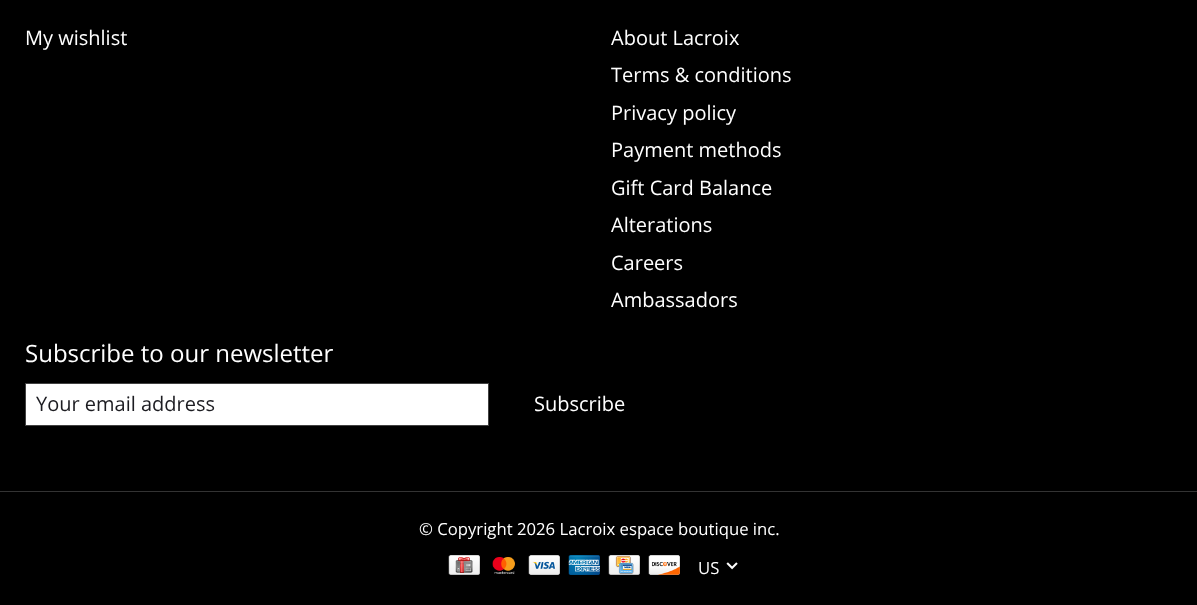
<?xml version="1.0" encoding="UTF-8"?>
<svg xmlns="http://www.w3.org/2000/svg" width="1197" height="605">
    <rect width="100%" height="100%" fill="#000000"/>
    <text x="25" y="45" font-family="Open Sans" font-size="20" fill="#FFFFFF">My wishlist</text>
    <text font-family="Open Sans" font-size="20" fill="#FFFFFF">
        <tspan x="611" y="45">About Lacroix</tspan>
        <tspan x="611" y="82">Terms &amp; conditions</tspan>
        <tspan x="611" y="120">Privacy policy</tspan>
        <tspan x="611" y="157">Payment methods</tspan>
        <tspan x="611" y="195">Gift Card Balance</tspan>
        <tspan x="611" y="232">Alterations</tspan>
        <tspan x="611" y="270">Careers</tspan>
        <tspan x="611" y="307">Ambassadors</tspan>
    </text>
    <text x="25" y="362" font-family="Open Sans" font-size="24" fill="#FFFFFF">Subscribe to our newsletter</text>
    <rect x="25.5" y="383.5" width="463" height="42" fill="#FFFFFF" stroke="#414141"/>
    <text x="36" y="411" font-family="Open Sans" font-size="20" fill="#1C1C21">Your email address</text>
    <text x="534" y="411" font-family="Open Sans" font-size="20" fill="#FFFFFF">Subscribe</text>
    <rect x="0" y="491" width="1197" height="1" fill="#333333"/>
    <text x="419" y="535" font-family="Open Sans" font-size="16.7" fill="#FFFFFF">© Copyright 2026 Lacroix espace boutique inc.</text>
    <image x="448" y="555" width="32" height="20" href="img_01.png"/>
    <image x="492" y="557" width="23" height="17" href="img_02.png"/>
    <image x="528" y="555" width="32" height="20" href="img_03.png"/>
    <image x="568" y="555" width="32" height="20" href="img_04.png"/>
    <image x="608" y="555" width="32" height="20" href="img_05.png"/>
    <image x="648" y="555" width="32" height="20" href="img_06.png"/>
    <text x="698" y="574" font-family="Open Sans" font-size="16.7" fill="#FFFFFF">US</text>
    <image x="726" y="562" width="12" height="8" href="img_07.png"/>
</svg>
